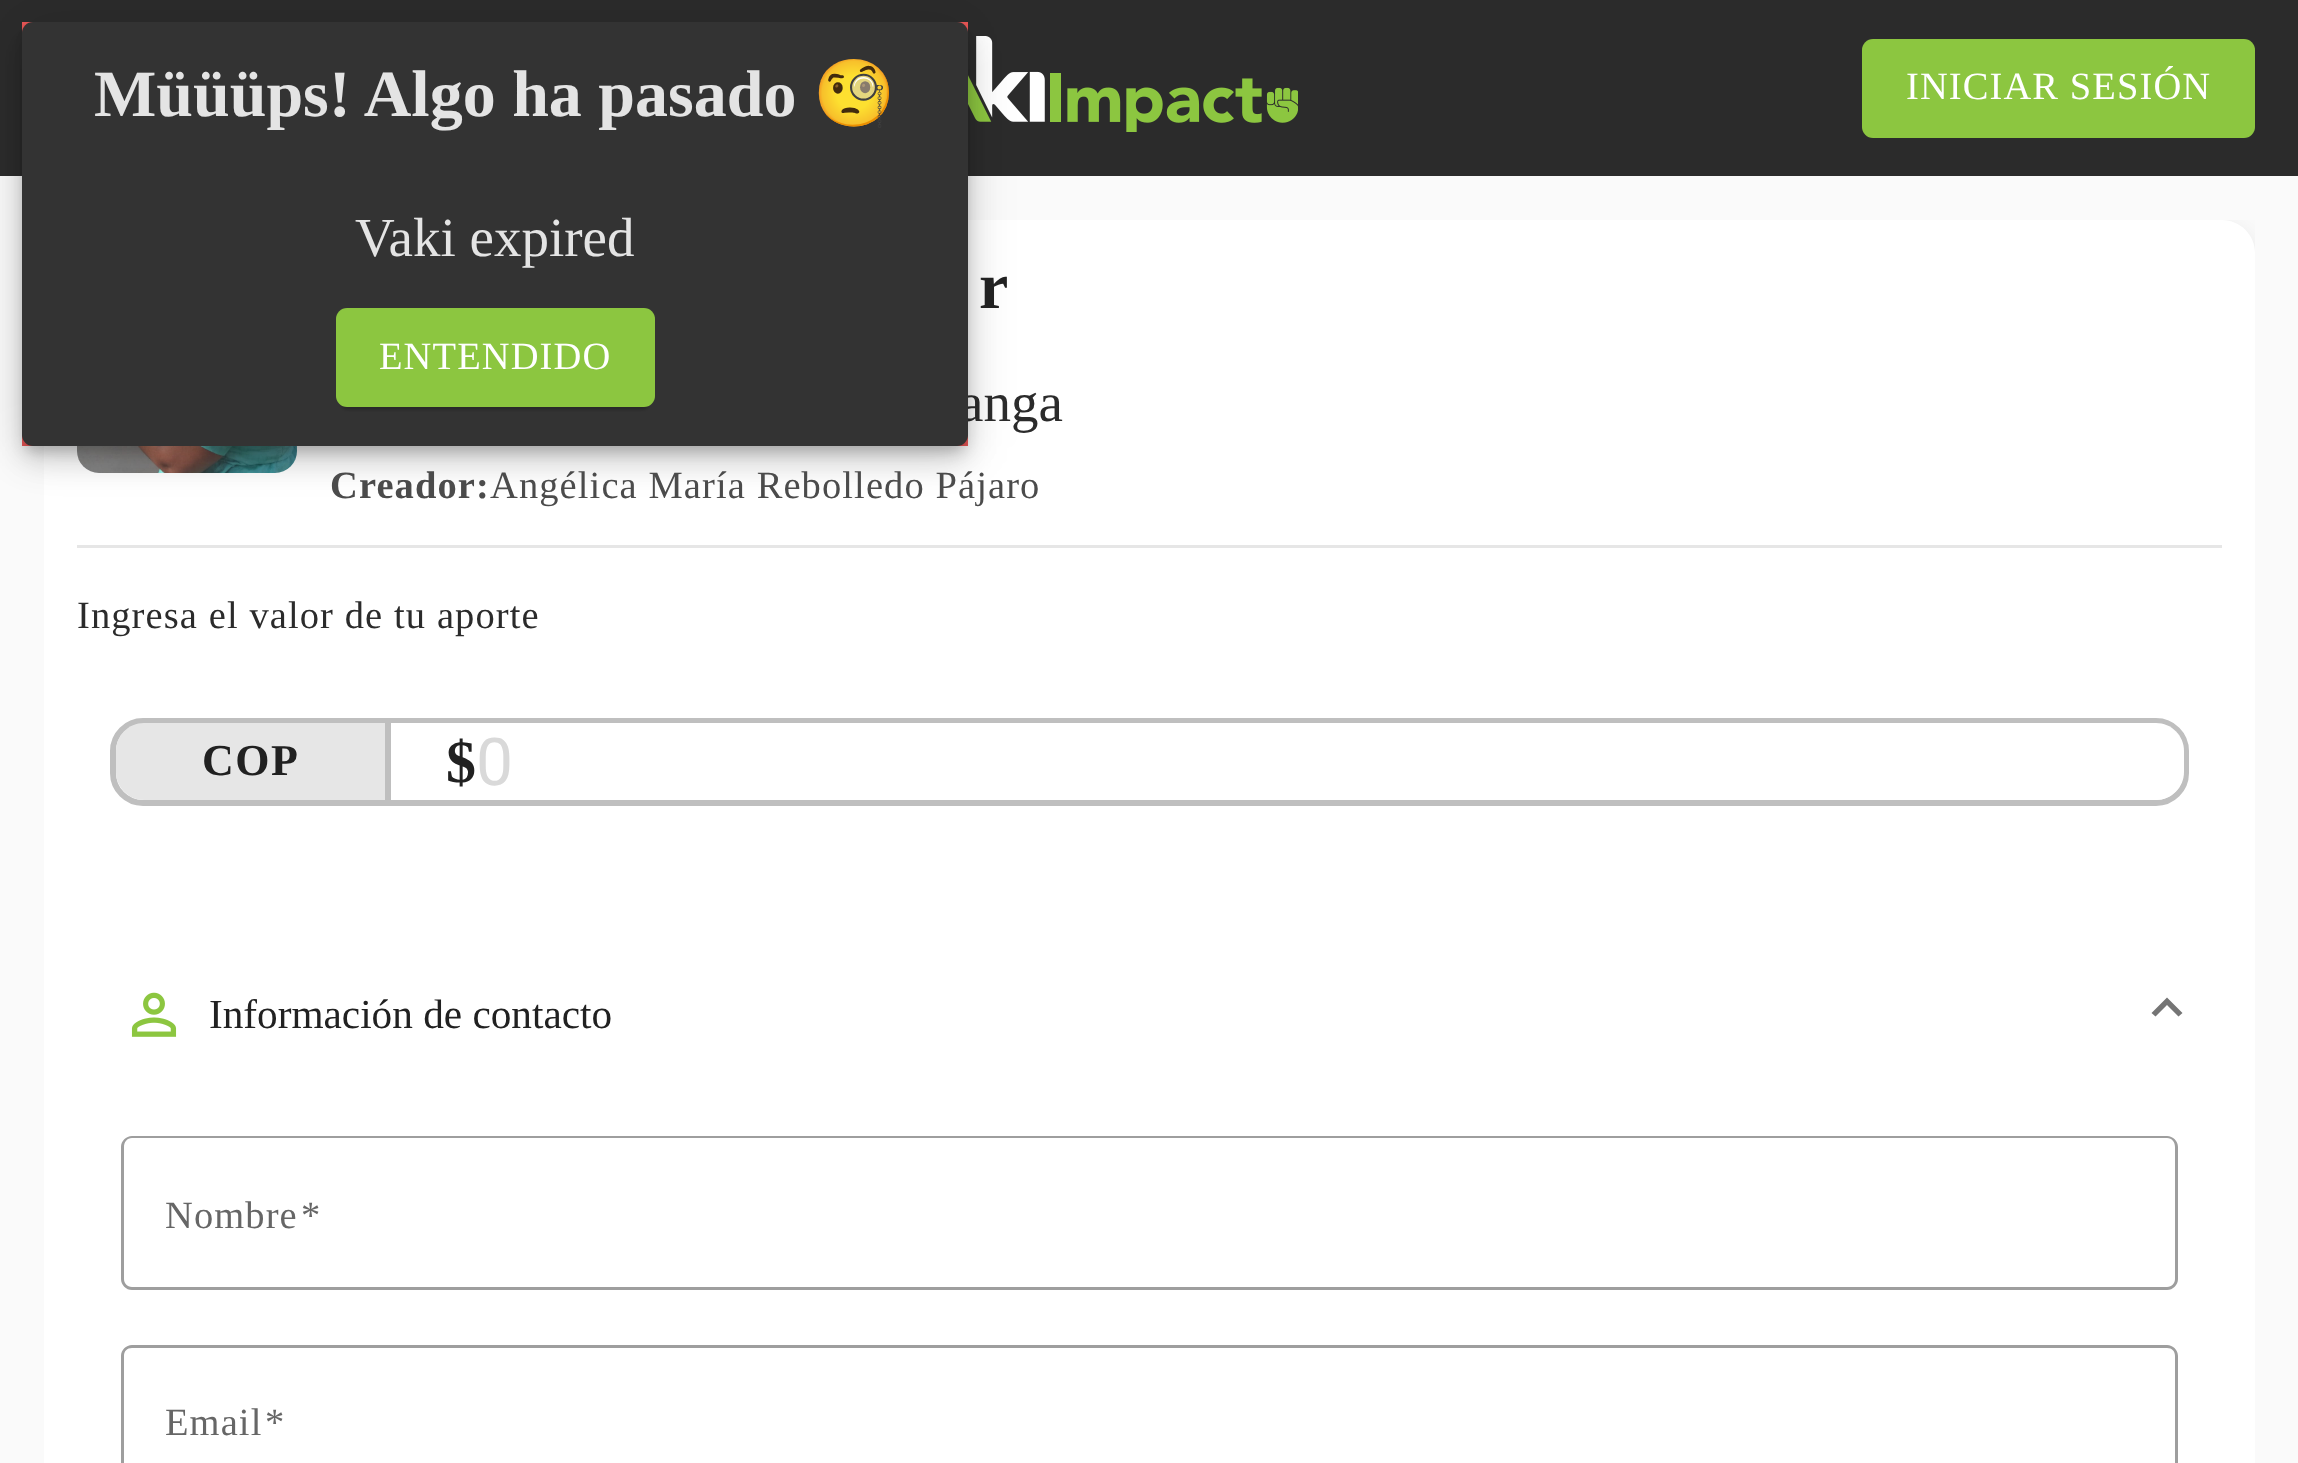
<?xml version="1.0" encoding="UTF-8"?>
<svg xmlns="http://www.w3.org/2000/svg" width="2298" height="1463">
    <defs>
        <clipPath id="clip1"><rect x="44" y="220" width="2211" height="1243"/></clipPath>
        <filter id="blur1" x="-50%" y="-200%" width="200%" height="500%"><feGaussianBlur stdDeviation="11"/></filter>
        <filter id="blur2" x="-50%" y="-200%" width="200%" height="500%"><feGaussianBlur stdDeviation="25"/></filter>
        <filter id="blur3" x="-50%" y="-200%" width="200%" height="500%"><feGaussianBlur stdDeviation="14"/></filter>
        <filter id="blur4" x="-50%" y="-200%" width="200%" height="500%"><feGaussianBlur stdDeviation="7"/></filter>
        <filter id="blur5" x="-50%" y="-200%" width="200%" height="500%"><feGaussianBlur stdDeviation="1.5"/></filter>
        <clipPath id="clip2"><rect x="154" y="789" width="2101" height="674"/></clipPath>
        <clipPath id="clip3"><rect x="154" y="998" width="2101" height="465"/></clipPath>
    </defs>
    <rect width="100%" height="100%" fill="#FAFAFA"/>
    <rect x="0" y="0" width="2298" height="176" fill="#2B2B2B"/>
    <g clip-path="url(#clip1)">
        <rect x="44" y="226" width="2211" height="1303" rx="33" fill="#000000" fill-opacity="0.08" filter="url(#blur1)"/>
    </g>
    <path d="M 77 220 H 2222 C 2240 220 2255 235 2255 253 V 1463 H 44 V 253 C 44 235 59 220 77 220 Z" fill="#FFFFFF"/>
    <text x="959" y="421" font-family="Liberation Serif" font-size="55" fill="#2B2B2B">anga</text>
    <rect x="22" y="22" width="946" height="424" fill="#EB5757"/>
    <image x="968" y="36" width="330" height="96" href="img_01.png"/>
    <image x="77" y="446" width="220" height="27" href="img_02.png"/>
    <rect x="22" y="25" width="946" height="423" rx="11" fill="#000000" fill-opacity="0.12" filter="url(#blur2)"/>
    <rect x="22" y="39" width="946" height="423" rx="11" fill="#000000" fill-opacity="0.14" filter="url(#blur3)"/>
    <rect x="25" y="33" width="940" height="418" rx="8" fill="#000000" fill-opacity="0.2" filter="url(#blur4)"/>
    <rect x="22" y="22" width="946" height="424" rx="11" fill="#333333"/>
    <text x="94" y="116" font-family="Liberation Serif" font-size="66" font-weight="700" fill="#E4E4E4">Müüüps! Algo ha pasado</text>
    <text x="813" y="116" font-family="Noto Color Emoji" font-size="66" font-weight="700" fill="#E4E4E4">🧐</text>
    <text x="355" y="256" font-family="Liberation Serif" font-size="55" fill="#E4E4E4">Vaki expired</text>
    <rect x="341" y="322" width="308" height="88" rx="6" fill="#000000" fill-opacity="0.2" filter="url(#blur5)"/>
    <rect x="336" y="308" width="319" height="99" rx="11" fill="#8CC640"/>
    <text x="379" y="369" font-family="Liberation Serif" font-size="38.5" letter-spacing="1.1" fill="#FFFFFF">ENTENDIDO</text>
    <rect x="1862" y="39" width="393" height="99" rx="11" fill="#8CC640"/>
    <text x="1906" y="99" font-family="Liberation Serif" font-size="38.5" letter-spacing="1.1" fill="#FFFFFF">INICIAR SESIÓN</text>
    <rect x="77" y="545" width="2145" height="3" fill="#E6E6E6"/>
    <text x="979" y="308" font-family="Liberation Serif" font-size="66" font-weight="700" fill="#212121">r</text>
    <text x="330" y="498" font-family="Liberation Serif" font-size="38.5" font-weight="700" letter-spacing="1.1" fill="#4B4B4B">Creador:</text>
    <text x="490" y="498" font-family="Liberation Serif" font-size="38.5" letter-spacing="1.1" fill="#4B4B4B">Angélica María Rebolledo Pájaro</text>
    <text x="77" y="628" font-family="Liberation Serif" font-size="38.5" letter-spacing="1.1" fill="#2B2B2B">Ingresa el valor de tu aporte</text>
    <rect x="113" y="721" width="2073" height="82" rx="30" fill="none" stroke="#BFBFBF" stroke-width="6"/>
    <path d="M 144 723 H 391 V 800 H 144 C 128.5 800 116 787.5 116 772 V 751 C 116 735.5 128.5 723 144 723 Z" fill="#E6E6E6"/>
    <rect x="385" y="723" width="6" height="77" fill="#BFBFBF"/>
    <text x="202" y="775" font-family="Liberation Serif" font-size="44" font-weight="700" letter-spacing="1.5" fill="#212121">COP</text>
    <path d="M 391 723 H 2156 C 2171.5 723 2184 735.5 2184 751 V 772 C 2184 787.5 2171.5 800 2156 800 H 391 Z" fill="#FFFFFF"/>
    <text x="446" y="782" font-family="Liberation Serif" font-size="60" font-weight="700" fill="#212121">$</text>
    <text x="476" y="785" font-family="Roboto" font-size="66" letter-spacing="-1" fill="#D9D9D9">0</text>
    <image x="131" y="992" width="46" height="45" href="img_03.png"/>
    <text x="209" y="1028" font-family="Liberation Serif" font-size="41.25" fill="#212121">Información de contacto</text>
    <path d="M 2151.5 1013 L 2167 997.5 V 1005 L 2155.5 1016.5 Z M 2167 997.5 L 2182.5 1013 L 2178.5 1016.5 L 2167 1005 Z" fill="#757575"/>
    <path d="M 132 1136 H 154 V 1290 H 132 C 126 1290 121 1285 121 1279 V 1147 C 121 1141 126 1136 132 1136 Z M 132 1138 H 154 V 1287 H 132 C 127 1287 124 1283 124 1279 V 1147 C 124 1142 127 1138 132 1138 Z" fill="#9E9E9E" fill-rule="evenodd"/>
    <g clip-path="url(#clip2)">
        <path d="M 151 1136 H 311 V 1138 H 154 Z" fill="#9E9E9E"/>
        <path d="M 311 1290 H 151 L 154 1287 H 311 Z" fill="#9E9E9E"/>
    </g>
    <text x="165" y="1228" font-family="Liberation Serif" font-size="38.5" letter-spacing="1.1" fill="#666666">Nombre</text>
    <path d="M 311 1136 H 2167 C 2173 1136 2178 1141 2178 1147 V 1279 C 2178 1285 2173 1290 2167 1290 H 311 Z M 311 1138 H 2167 C 2172 1138 2175 1142 2175 1147 V 1279 C 2175 1283 2172 1287 2167 1287 H 311 Z" fill="#9E9E9E" fill-rule="evenodd"/>
    <text x="301" y="1228" font-family="Liberation Serif" font-size="38.5" letter-spacing="1.1" fill="#666666">*</text>
    <path d="M 132 1345 H 154 V 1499 H 132 C 126 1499 121 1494 121 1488 V 1356 C 121 1350 126 1345 132 1345 Z M 132 1348 H 154 V 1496 H 132 C 127 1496 124 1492 124 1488 V 1356 C 124 1351 127 1348 132 1348 Z" fill="#9E9E9E" fill-rule="evenodd"/>
    <g clip-path="url(#clip3)">
        <path d="M 151 1345 H 275 V 1348 H 154 Z" fill="#9E9E9E"/>
    </g>
    <text x="165" y="1435" font-family="Liberation Serif" font-size="38.5" letter-spacing="1.1" fill="#666666">Email</text>
    <path d="M 275 1345 H 2167 C 2173 1345 2178 1350 2178 1356 V 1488 C 2178 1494 2173 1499 2167 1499 H 275 Z M 275 1348 H 2167 C 2172 1348 2175 1351 2175 1356 V 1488 C 2175 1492 2172 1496 2167 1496 H 275 Z" fill="#9E9E9E" fill-rule="evenodd"/>
    <text x="265" y="1435" font-family="Liberation Serif" font-size="38.5" letter-spacing="1.1" fill="#666666">*</text>
</svg>
